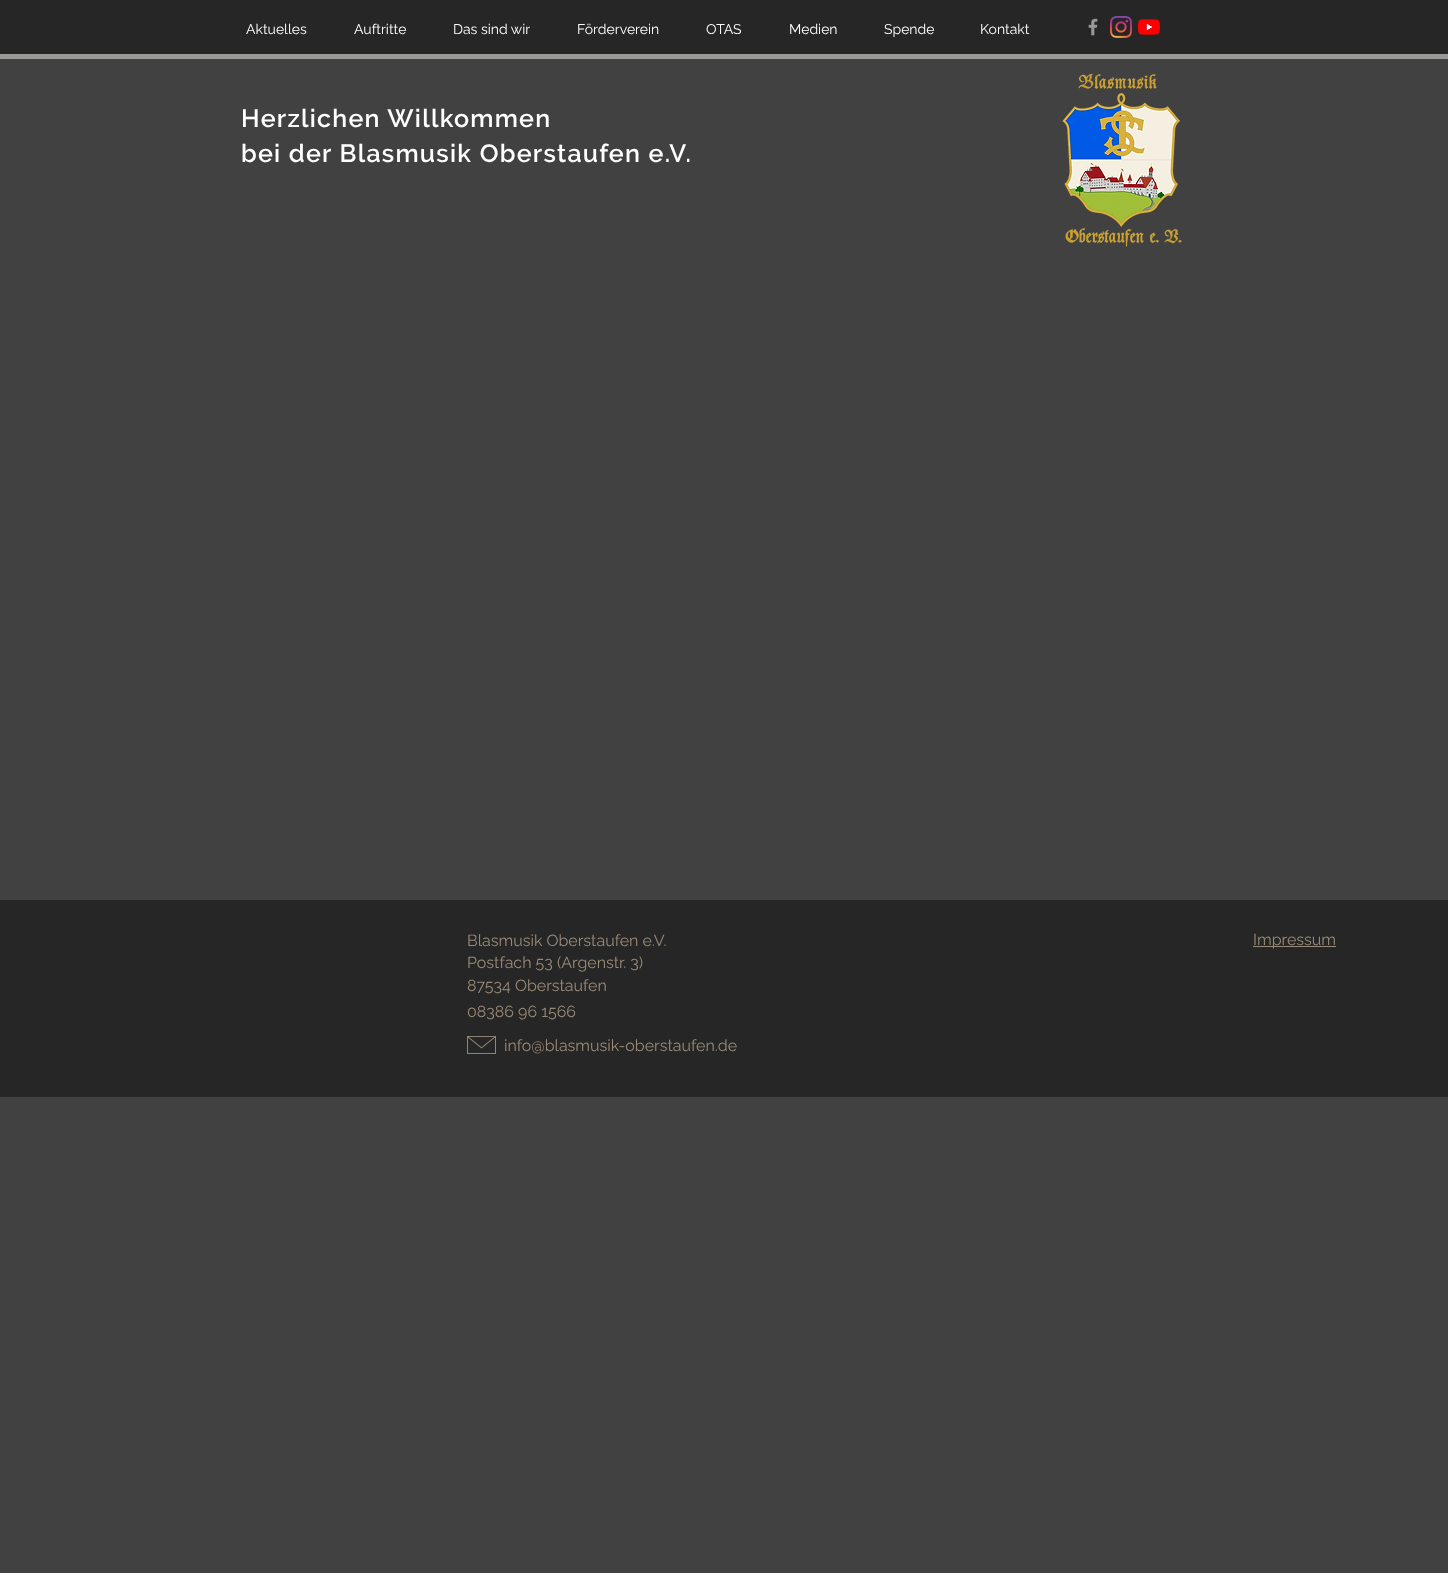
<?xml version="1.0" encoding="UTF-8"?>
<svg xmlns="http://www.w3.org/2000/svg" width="1448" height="1573">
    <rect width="100%" height="100%" fill="#414141"/>
    <rect x="0" y="0" width="1448" height="54" fill="#262626"/>
    <rect x="0" y="54" width="1448" height="5" fill="#999997"/>
    <text x="246" y="34" font-family="Raleway" font-size="14" fill="#FFFFFF">Aktuelles</text>
    <text x="354" y="34" font-family="Raleway" font-size="14" fill="#FFFFFF">Auftritte</text>
    <text x="453" y="34" font-family="Raleway" font-size="14" fill="#FFFFFF">Das sind wir</text>
    <text x="577" y="34" font-family="Raleway" font-size="14" fill="#FFFFFF">Förderverein</text>
    <text x="706" y="34" font-family="Raleway" font-size="14" fill="#FFFFFF">OTAS</text>
    <text x="789" y="34" font-family="Raleway" font-size="14" fill="#FFFFFF">Medien</text>
    <text x="884" y="34" font-family="Raleway" font-size="14" fill="#FFFFFF">Spende</text>
    <text x="980" y="34" font-family="Raleway" font-size="14" fill="#FFFFFF">Kontakt</text>
    <image x="1088" y="18" width="10" height="18" href="img_01.png"/>
    <image x="1110" y="16" width="22" height="22" href="img_02.png"/>
    <image x="1138" y="19" width="22" height="16" href="img_03.png"/>
    <text font-family="Raleway" font-size="25" font-weight="600" letter-spacing="1.25" fill="#FFFFFF">
        <tspan x="241" y="127">Herzlichen Willkommen</tspan>
        <tspan x="241" y="162">bei der Blasmusik Oberstaufen e.V.</tspan>
    </text>
    <image x="1062" y="73" width="120" height="174" href="img_04.png"/>
    <rect x="0" y="900" width="1448" height="197" fill="#262626"/>
    <text font-family="Raleway" font-size="16" fill="#9A8A78">
        <tspan x="467" y="946">Blasmusik Oberstaufen e.V.</tspan>
        <tspan x="467" y="968">Postfach 53 (Argenstr. 3)</tspan>
        <tspan x="467" y="991">87534 Oberstaufen</tspan>
    </text>
    <rect x="1253" y="946" width="83" height="1" fill="#9A8A78"/>
    <text x="1253" y="945" font-family="Raleway" font-size="16" fill="#9A8A78">Impressum</text>
    <text x="467" y="1017" font-family="Raleway" font-size="16" fill="#9A8A78">08386 96 1566</text>
    <image x="467" y="1036" width="29" height="18" href="img_05.png"/>
    <text x="504" y="1051" font-family="Raleway" font-size="16" fill="#9A8A78">info@blasmusik-oberstaufen.de</text>
</svg>
